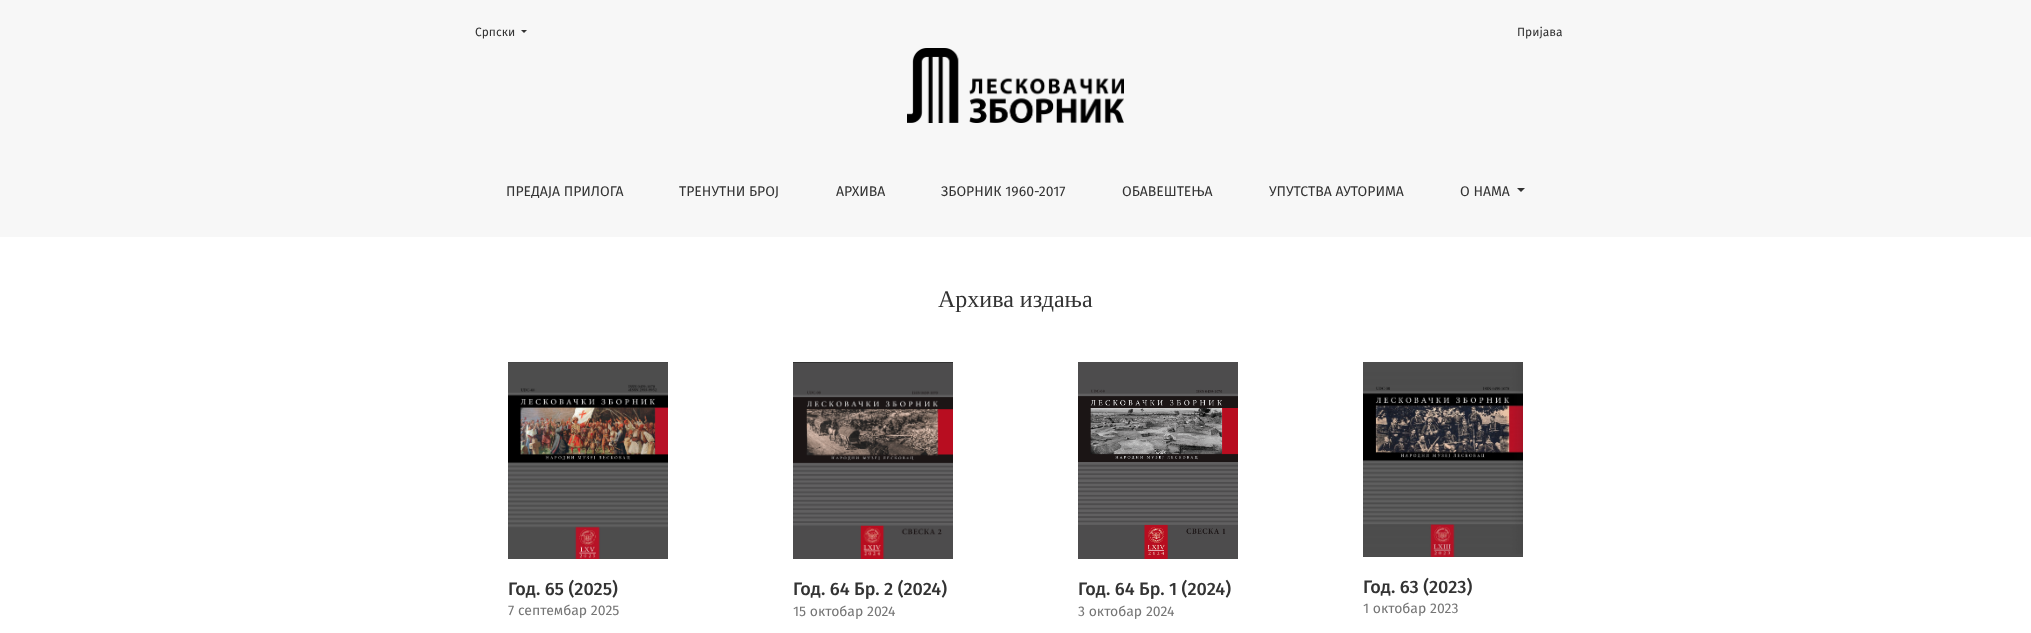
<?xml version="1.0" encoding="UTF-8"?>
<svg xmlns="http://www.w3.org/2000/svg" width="2031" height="633">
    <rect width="100%" height="100%" fill="#FFFFFF"/>
    <rect x="0" y="0" width="2031" height="237" fill="#F7F7F7"/>
    <text x="475" y="36" font-family="Fira Sans" font-size="12" fill="#333333">Cрпски</text>
    <path d="M 521 30 H 527 L 524 33 Z" fill="#333333"/>
    <text x="1517" y="36" font-family="Fira Sans" font-size="12" fill="#333333">Пријава</text>
    <image x="907" y="48" width="217" height="75" href="img_01.png"/>
    <text x="506" y="196" font-family="Fira Sans" font-size="14" fill="#333333">ПРЕДАЈА ПРИЛОГА</text>
    <text x="679" y="196" font-family="Fira Sans" font-size="14" fill="#333333">ТРЕНУТНИ БРОЈ</text>
    <text x="836" y="196" font-family="Fira Sans" font-size="14" fill="#333333">АРХИВА</text>
    <text x="941" y="196" font-family="Fira Sans" font-size="14" fill="#333333">ЗБОРНИК 1960-2017</text>
    <text x="1122" y="196" font-family="Fira Sans" font-size="14" fill="#333333">ОБАВЕШТЕЊА</text>
    <text x="1269" y="196" font-family="Fira Sans" font-size="14" fill="#333333">УПУТСТВА АУТОРИМА</text>
    <text x="1460" y="196" font-family="Fira Sans" font-size="14" fill="#333333">О НАМА</text>
    <path d="M 1517 188 H 1525 L 1521 192 Z" fill="#333333"/>
    <text x="938" y="307" font-family="Liberation Serif" font-size="24" fill="#333333">Архива издања</text>
    <image x="508" y="362" width="160" height="197" href="img_02.png"/>
    <text x="508" y="595" font-family="Fira Sans" font-size="18" font-weight="500" fill="#333333">Год. 65 (2025)</text>
    <text x="508" y="615" font-family="Fira Sans" font-size="14" fill="#757575">7 септембар 2025</text>
    <image x="793" y="362" width="160" height="197" href="img_03.png"/>
    <text x="793" y="595" font-family="Fira Sans" font-size="18" font-weight="500" fill="#333333">Год. 64 Бр. 2 (2024)</text>
    <text x="793" y="616" font-family="Fira Sans" font-size="14" fill="#757575">15 октобар 2024</text>
    <image x="1078" y="362" width="160" height="197" href="img_04.png"/>
    <text x="1078" y="595" font-family="Fira Sans" font-size="18" font-weight="500" fill="#333333">Год. 64 Бр. 1 (2024)</text>
    <text x="1078" y="616" font-family="Fira Sans" font-size="14" fill="#757575">3 октобар 2024</text>
    <image x="1363" y="362" width="160" height="195" href="img_05.png"/>
    <text x="1363" y="593" font-family="Fira Sans" font-size="18" font-weight="500" fill="#333333">Год. 63 (2023)</text>
    <text x="1363" y="613" font-family="Fira Sans" font-size="14" fill="#757575">1 октобар 2023</text>
</svg>
